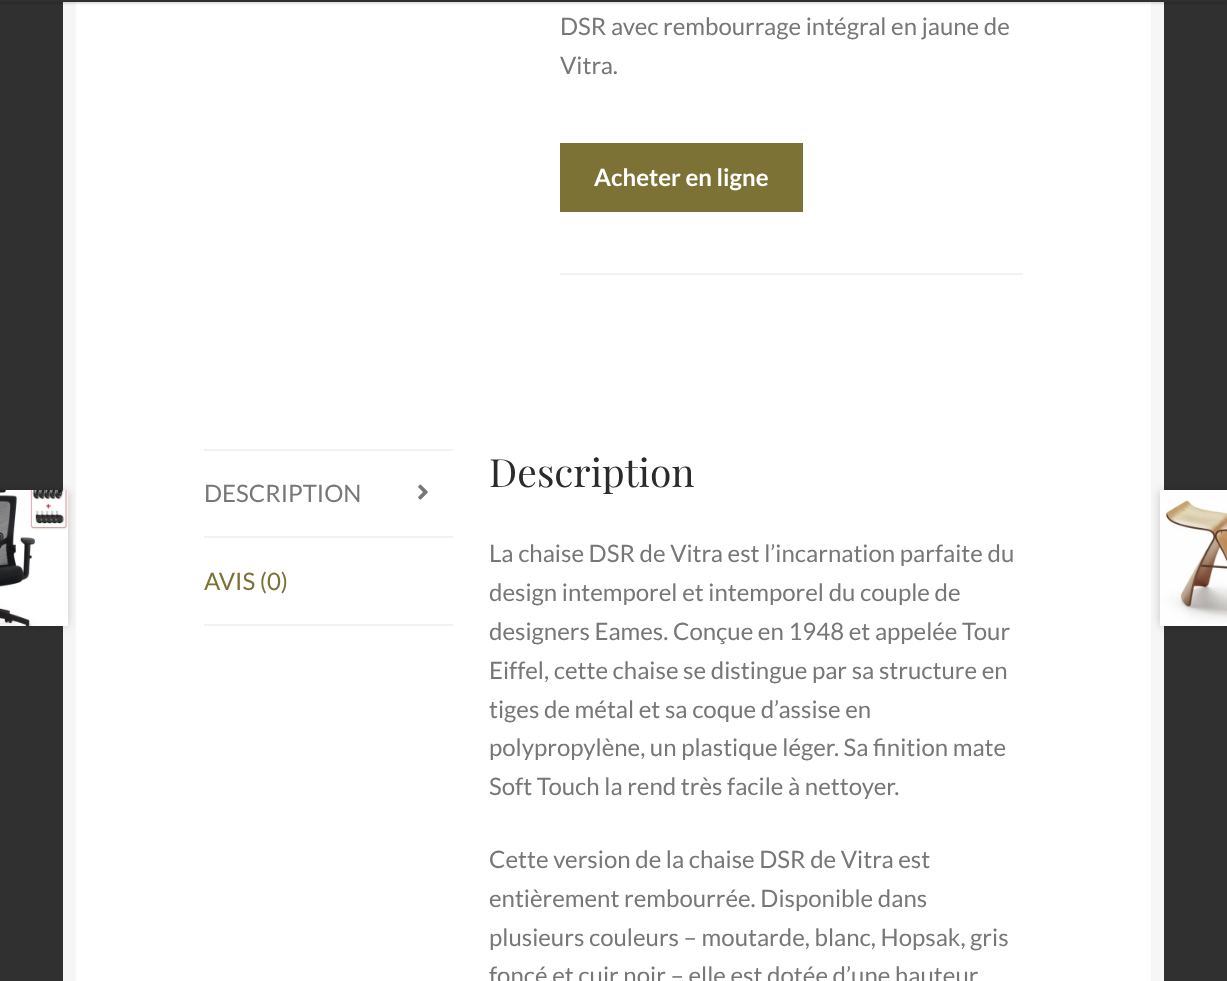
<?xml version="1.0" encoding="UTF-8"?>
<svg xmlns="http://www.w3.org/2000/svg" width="1227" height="981">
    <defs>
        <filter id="blur1" x="-50%" y="-200%" width="200%" height="500%"><feGaussianBlur stdDeviation="1.5"/></filter>
        <filter id="blur2" x="-50%" y="-200%" width="200%" height="500%"><feGaussianBlur stdDeviation="4"/></filter>
    </defs>
    <rect width="100%" height="100%" fill="#303030"/>
    <rect x="76" y="2" width="1075" height="979" fill="#FFFFFF"/>
    <rect x="69.5" y="-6.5" width="1088" height="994" fill="none" stroke="#F6F6F6" stroke-width="13"/>
    <rect x="0" y="-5" width="1227" height="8" fill="#000000" fill-opacity="0.2" filter="url(#blur1)"/>
    <rect x="0" y="0" width="1227" height="2" fill="#303030"/>
    <text font-family="Lato" font-size="24" fill="#777777">
        <tspan x="560" y="35">DSR avec rembourrage intégral en jaune de</tspan>
        <tspan x="560" y="74">Vitra.</tspan>
    </text>
    <rect x="560" y="143" width="243" height="69" fill="#7C7235"/>
    <text x="594" y="186" font-family="Lato" font-size="24" font-weight="700" fill="#FFFFFF">Acheter en ligne</text>
    <rect x="560" y="273" width="463" height="2" fill="#F2F2F2"/>
    <rect x="204" y="449" width="249" height="2" fill="#F2F2F2"/>
    <rect x="204" y="536" width="249" height="2" fill="#F2F2F2"/>
    <text x="204" y="502" font-family="Lato" font-size="24" fill="#777777">DESCRIPTION</text>
    <image x="418" y="484" width="10" height="16" href="img_01.png"/>
    <rect x="204" y="624" width="249" height="2" fill="#F2F2F2"/>
    <text x="204" y="590" font-family="Lato" font-size="24" fill="#7C7235">AVIS (0)</text>
    <text x="489" y="487" font-family="Playfair Display" font-size="39" fill="#2B2B2B">Description</text>
    <text font-family="Lato" font-size="24" fill="#777777">
        <tspan x="489" y="562">La chaise DSR de Vitra est l’incarnation parfaite du</tspan>
        <tspan x="489" y="601">design intemporel et intemporel du couple de</tspan>
        <tspan x="489" y="640">designers Eames. Conçue en 1948 et appelée Tour</tspan>
        <tspan x="489" y="679">Eiffel, cette chaise se distingue par sa structure en</tspan>
        <tspan x="489" y="718">tiges de métal et sa coque d’assise en</tspan>
        <tspan x="489" y="756">polypropylène, un plastique léger. Sa finition mate</tspan>
        <tspan x="489" y="795">Soft Touch la rend très facile à nettoyer.</tspan>
    </text>
    <text font-family="Lato" font-size="24" fill="#777777">
        <tspan x="489" y="868">Cette version de la chaise DSR de Vitra est</tspan>
        <tspan x="489" y="907">entièrement rembourrée. Disponible dans</tspan>
        <tspan x="489" y="946">plusieurs couleurs – moutarde, blanc, Hopsak, gris</tspan>
        <tspan x="489" y="984">foncé et cuir noir – elle est dotée d’une hauteur</tspan>
    </text>
    <rect x="-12" y="491" width="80" height="135" fill="#000000" fill-opacity="0.2" filter="url(#blur2)"/>
    <image x="0" y="490" width="68" height="136" href="img_02.png"/>
    <rect x="1160" y="491" width="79" height="135" fill="#000000" fill-opacity="0.2" filter="url(#blur2)"/>
    <image x="1160" y="490" width="67" height="136" href="img_03.png"/>
</svg>
